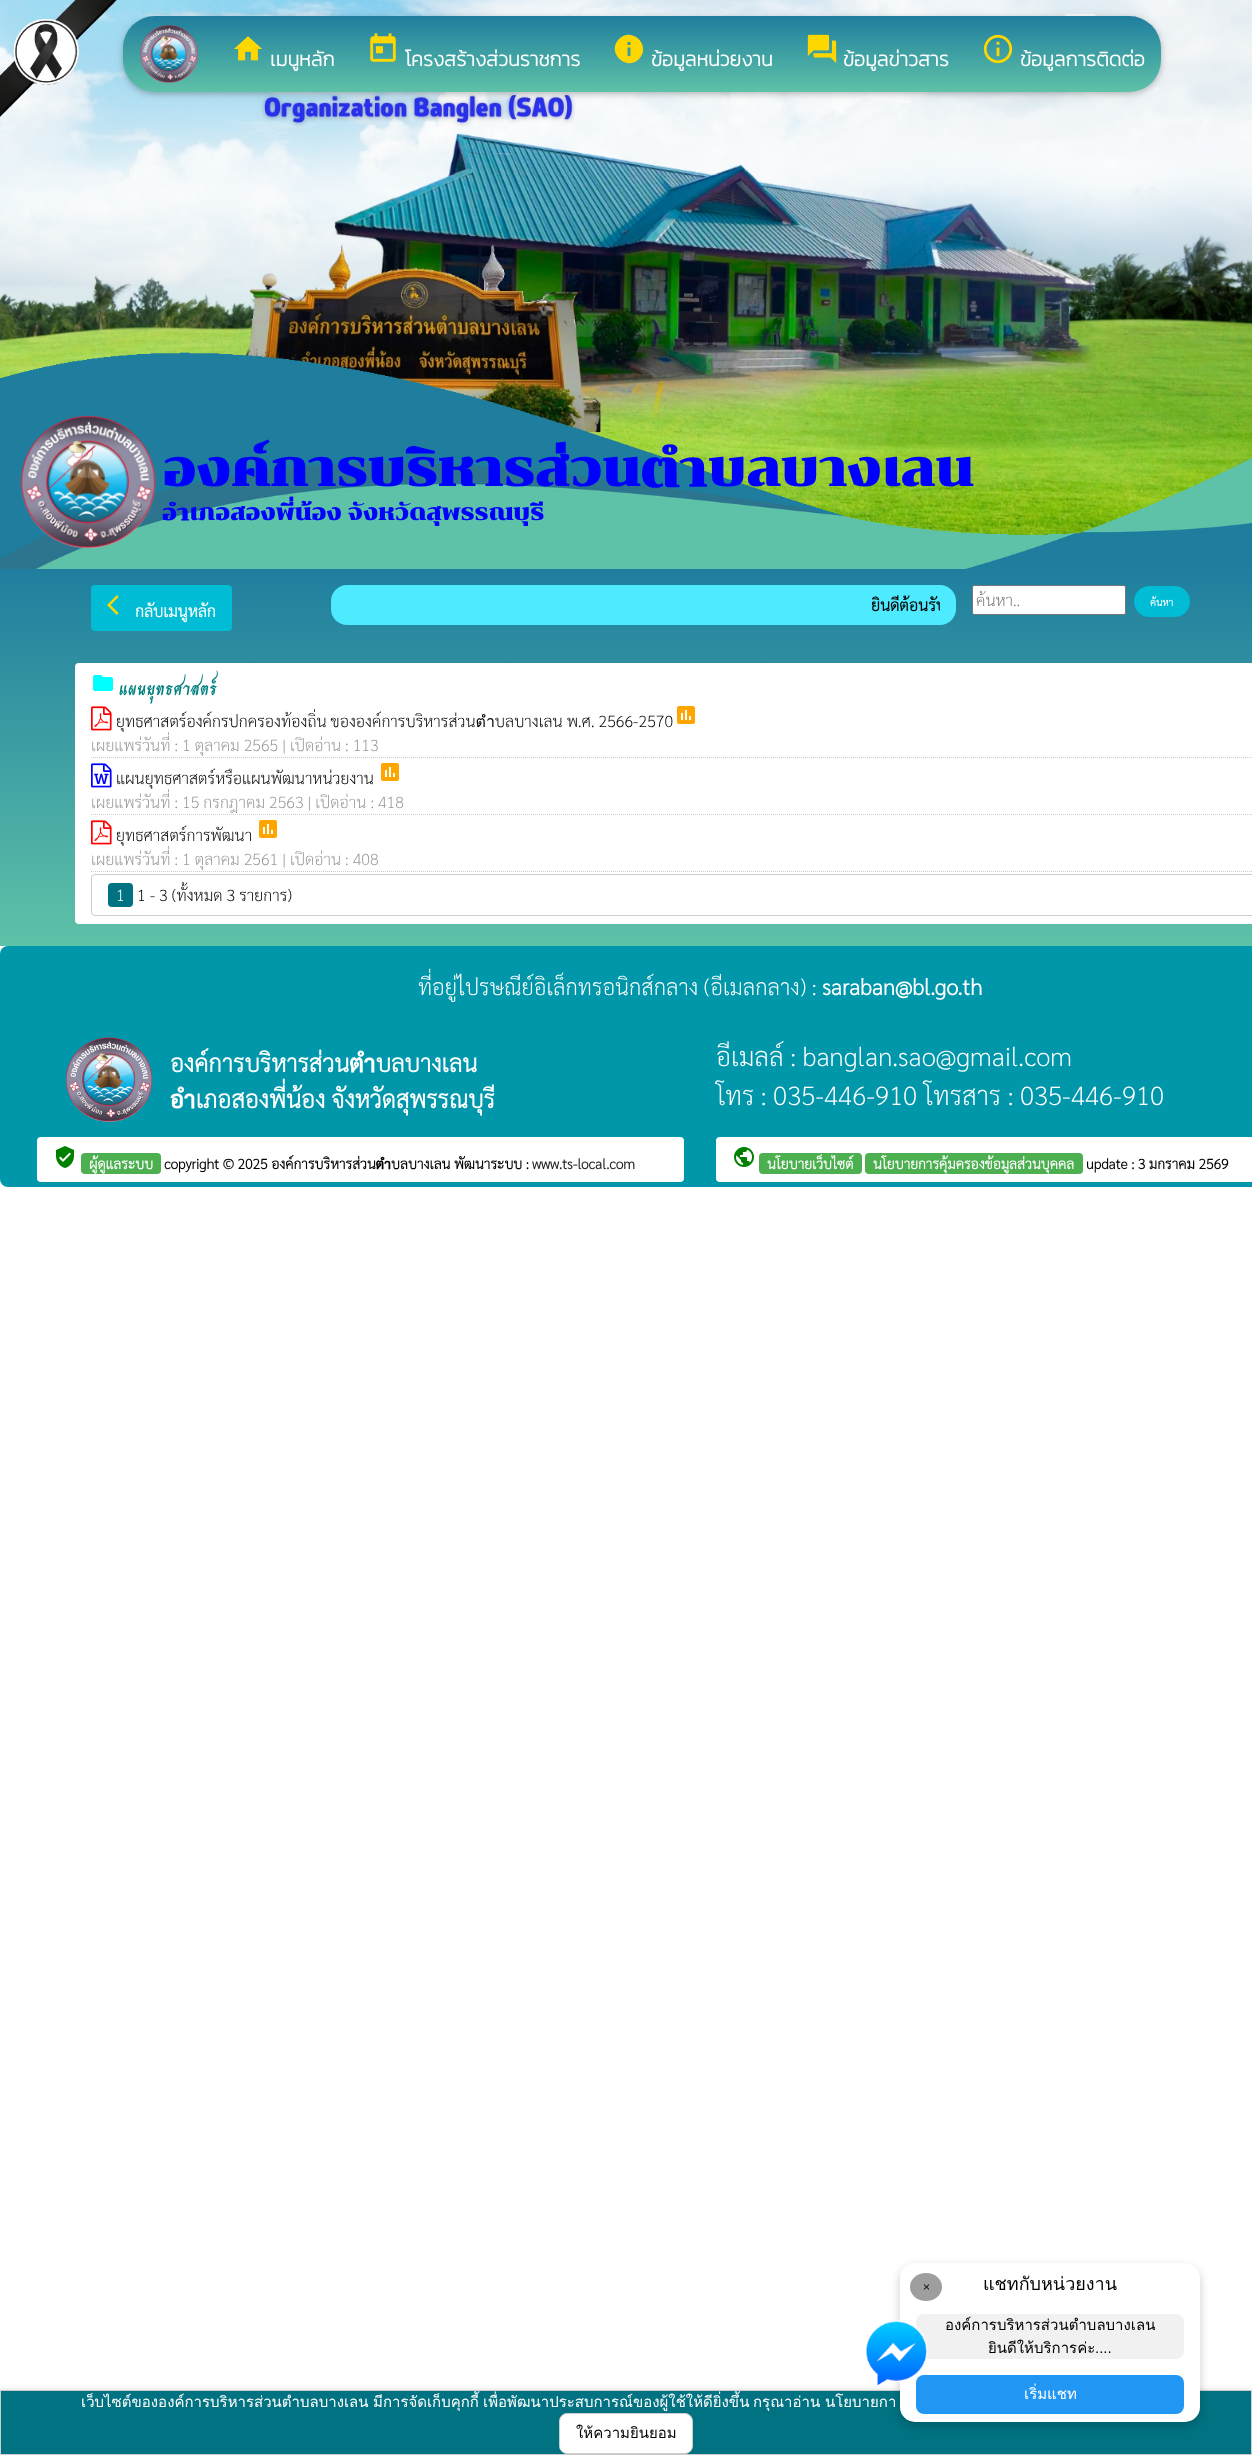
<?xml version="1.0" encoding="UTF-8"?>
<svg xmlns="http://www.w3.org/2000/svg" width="1252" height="2455">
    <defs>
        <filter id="blur1" x="-50%" y="-200%" width="200%" height="500%"><feGaussianBlur stdDeviation="5"/></filter>
        <filter id="blur2" x="-50%" y="-200%" width="200%" height="500%"><feGaussianBlur stdDeviation="2.5"/></filter>
        <linearGradient id="g1" gradientUnits="userSpaceOnUse" x1="642" y1="16" x2="642" y2="92"><stop offset="0" stop-color="#1F7E9E"/><stop offset="1" stop-color="#5EC2A8"/></linearGradient>
        <linearGradient id="g2" gradientUnits="userSpaceOnUse" x1="700" y1="569" x2="700" y2="946"><stop offset="0" stop-color="#1F7E9E"/><stop offset="1" stop-color="#5EC2A8"/></linearGradient>
        <clipPath id="clip1"><rect x="347" y="593" width="593" height="24"/></clipPath>
        <clipPath id="clip2"><rect x="976" y="589" width="146" height="21"/></clipPath>
    </defs>
    <rect width="100%" height="100%" fill="#FFFFFF"/>
    <image x="0" y="0" width="1252" height="535" href="img_07.png"/>
    <rect x="123" y="18" width="1038" height="76" rx="32" fill="#000000" fill-opacity="0.12" filter="url(#blur1)"/>
    <rect x="123" y="18" width="1038" height="76" rx="32" fill="#000000" fill-opacity="0.16" filter="url(#blur2)"/>
    <image x="0" y="0" width="117" height="118" href="img_01.png"/>
    <rect x="123" y="16" width="1038" height="76" rx="32" fill="url(#g1)"/>
    <image x="140" y="24" width="59" height="60" href="img_02.png"/>
    <image x="234" y="36" width="28" height="25" href="img_03.png"/>
    <text x="270" y="66" font-family="Kanit" font-size="20" font-weight="700" fill="#FFFFFF">เมนูหลัก</text>
    <image x="370" y="33" width="26" height="29" href="img_04.png"/>
    <text x="405" y="66" font-family="Kanit" font-size="20" font-weight="700" fill="#FFFFFF">โครงสร้างส่วนราชการ</text>
    <path d="M 630.5 45 V 42 H 627.5 V 45 Z M 630.5 56 V 47.5 H 627.5 V 56 Z M 619 39 C 632 26 652 46 639 59 C 626 72 606 52 619 39 Z" fill="#FFD700"/>
    <text x="651" y="66" font-family="Kanit" font-size="20" font-weight="700" fill="#FFFFFF">ข้อมูลหน่วยงาน</text>
    <image x="807" y="34" width="30" height="29" href="img_05.png"/>
    <text x="843" y="66" font-family="Kanit" font-size="20" font-weight="700" fill="#FFFFFF">ข้อมูลข่าวสาร</text>
    <image x="983" y="34" width="30" height="30" href="img_06.png"/>
    <text x="1020" y="66" font-family="Kanit" font-size="20" font-weight="700" fill="#FFFFFF">ข้อมูลการติดต่อ</text>
    <image x="0" y="352" width="1252" height="217" href="img_08.png"/>
    <image x="20" y="415" width="136" height="134" href="img_09.png"/>
    <text x="162" y="486" font-family="Chonburi" font-size="50" font-weight="700" fill="#0000FF">องค์การบริหารส่วนตำบลบางเลน</text>
    <text x="162" y="520" font-family="Chonburi" font-size="22" font-weight="700" fill="#0000FF">อำเภอสองพี่น้อง จังหวัดสุพรรณบุรี</text>
    <rect x="0" y="569" width="1252" height="377" fill="url(#g2)"/>
    <rect x="91" y="585" width="141" height="46" rx="4" fill="#00BCD4"/>
    <path d="M 118.5 597 L 110.5 605 L 118.5 613 L 117 615 L 107 605 L 117 595 Z" fill="#FFD700"/>
    <text x="135" y="617" font-family="Sarabun" font-size="16" font-weight="700" fill="#FFFFFF">กลับเมนูหลัก</text>
    <rect x="331" y="585" width="625" height="40" rx="16" fill="#4EEAFF"/>
    <g clip-path="url(#clip1)">
        <text x="871" y="611" font-family="Sarabun" font-size="16" font-weight="700" fill="#000000">ยินดีต้อนรับ</text>
    </g>
    <rect x="972.5" y="585.5" width="153" height="29" rx="1.5" fill="#FFFFFF" stroke="#767676"/>
    <g clip-path="url(#clip2)">
        <text x="976" y="606" font-family="Sarabun" font-size="16" font-weight="200" fill="#757575">ค้นหา..</text>
    </g>
    <rect x="1134" y="586" width="56" height="31" rx="15.5" fill="#00BCD4"/>
    <text x="1150" y="606" font-family="Sarabun" font-size="10" font-weight="700" fill="#FFFFFF">ค้นหา</text>
    <rect x="75" y="663" width="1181" height="261" rx="4" fill="#FFFFFF"/>
    <image x="93" y="675" width="20" height="16" href="img_10.png"/>
    <text x="119" y="695" font-family="Charm" font-size="18" font-weight="700" fill="#008080">แผนยุทธศาสตร์</text>
    <image x="91" y="706" width="21" height="25" href="img_11.png"/>
    <text x="116" y="727" font-family="Sarabun" font-size="16" font-weight="200" fill="#000000">ยุทธศาสตร์องค์กรปกครองท้องถิ่น ขององค์การบริหารส่วนตำบลบางเลน พ.ศ. 2566-2570</text>
    <image x="677" y="706" width="18" height="18" href="img_12.png"/>
    <path d="M 91 757.5 H 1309" fill="none" stroke="#CCCCCC" stroke-dasharray="1 1"/>
    <text x="91" y="751" font-family="Sarabun" font-size="16" font-weight="200" fill="#999999">เผยแพร่วันที่ : 1 ตุลาคม 2565 | เปิดอ่าน : 113</text>
    <image x="91" y="763" width="21" height="25" href="img_13.png"/>
    <text x="116" y="784" font-family="Sarabun" font-size="16" font-weight="200" fill="#000000">แผนยุทธศาสตร์หรือแผนพัฒนาหน่วยงาน</text>
    <image x="381" y="763" width="18" height="18" href="img_12.png"/>
    <path d="M 91 814.5 H 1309" fill="none" stroke="#CCCCCC" stroke-dasharray="1 1"/>
    <text x="91" y="808" font-family="Sarabun" font-size="16" font-weight="200" fill="#999999">เผยแพร่วันที่ : 15 กรกฎาคม 2563 | เปิดอ่าน : 418</text>
    <image x="91" y="820" width="21" height="25" href="img_11.png"/>
    <text x="116" y="841" font-family="Sarabun" font-size="16" font-weight="200" fill="#000000">ยุทธศาสตร์การพัฒนา</text>
    <image x="259" y="820" width="18" height="18" href="img_12.png"/>
    <path d="M 91 871.5 H 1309" fill="none" stroke="#CCCCCC" stroke-dasharray="1 1"/>
    <text x="91" y="865" font-family="Sarabun" font-size="16" font-weight="200" fill="#999999">เผยแพร่วันที่ : 1 ตุลาคม 2561 | เปิดอ่าน : 408</text>
    <rect x="91.5" y="874.5" width="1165" height="41" rx="3.5" fill="none" stroke="#CCCCCC"/>
    <rect x="108" y="883" width="25" height="24" rx="4" fill="#007281"/>
    <text x="116" y="901" font-family="Sarabun" font-size="16" font-weight="200" fill="#FFFFFF">1</text>
    <text x="137" y="901" font-family="Sarabun" font-size="16" font-weight="200" fill="#000000">1 - 3 (ทั้งหมด 3 รายการ)</text>
    <rect x="0" y="946" width="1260" height="241" rx="8" fill="#0097AB"/>
    <text x="418" y="995" font-family="Sarabun" font-size="22" font-weight="200" fill="#FFFFFF">ที่อยู่ไปรษณีย์อิเล็กทรอนิกส์กลาง (อีเมลกลาง) :</text>
    <text x="822" y="995" font-family="Sarabun" font-size="22" font-weight="700" fill="#FFFFFF">saraban@bl.go.th</text>
    <image x="66" y="1037" width="87" height="85" href="img_14.png"/>
    <text font-family="Sarabun" font-size="24" font-weight="700" fill="#FFFFFF">
        <tspan x="170" y="1072">องค์การบริหารส่วนตำบลบางเลน</tspan>
        <tspan x="170" y="1108">อำเภอสองพี่น้อง จังหวัดสุพรรณบุรี</tspan>
    </text>
    <text font-family="Sarabun" font-size="26" font-weight="200" fill="#FFFFFF">
        <tspan x="716" y="1066">อีเมลล์ : banglan.sao@gmail.com</tspan>
        <tspan x="716" y="1105">โทร : 035-446-910 โทรสาร : 035-446-910</tspan>
    </text>
    <rect x="37" y="1137" width="647" height="45" rx="4" fill="#FFFFFF"/>
    <image x="56" y="1146" width="18" height="22" href="img_15.png"/>
    <rect x="81" y="1153" width="80" height="21" rx="4" fill="#4CAF50"/>
    <text x="89" y="1169" font-family="Sarabun" font-size="14" font-weight="700" fill="#FFFFFF">ผู้ดูแลระบบ</text>
    <text x="164" y="1169" font-family="Sarabun" font-size="14" font-weight="700" fill="#000000">copyright © 2025 องค์การบริหารส่วนตำบลบางเลน พัฒนาระบบ :</text>
    <text x="532" y="1169" font-family="Sarabun" font-size="14" font-weight="700" fill="#222222">www.ts-local.com</text>
    <rect x="716" y="1137" width="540" height="45" rx="4" fill="#FFFFFF"/>
    <image x="734" y="1147" width="20" height="20" href="img_16.png"/>
    <rect x="759" y="1153" width="103" height="21" rx="4" fill="#4CAF50"/>
    <text x="767" y="1169" font-family="Sarabun" font-size="14" font-weight="700" fill="#FFFFFF">นโยบายเว็บไซต์</text>
    <rect x="865" y="1153" width="218" height="21" rx="4" fill="#4CAF50"/>
    <text x="873" y="1169" font-family="Sarabun" font-size="14" font-weight="700" fill="#FFFFFF">นโยบายการคุ้มครองข้อมูลส่วนบุคคล</text>
    <text x="1086" y="1169" font-family="Sarabun" font-size="14" font-weight="700" fill="#000000">update : 3 มกราคม 2569</text>
    <rect x="0" y="2392" width="1252" height="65" fill="#000000" fill-opacity="0.12" filter="url(#blur1)"/>
    <rect x="0" y="2392" width="1252" height="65" fill="#000000" fill-opacity="0.16" filter="url(#blur2)"/>
    <rect x="0.5" y="2390.5" width="1251" height="64" fill="#007281" stroke="#CCCCCC"/>
    <rect x="900" y="2267" width="300" height="159" rx="15" fill="#000000" fill-opacity="0.2" filter="url(#blur1)"/>
    <rect x="900" y="2263" width="300" height="159" rx="15" fill="#FFFFFF"/>
    <ellipse cx="926" cy="2287" rx="16" ry="14" fill="#9E9E9E"/>
    <text x="923" y="2291" font-family="Liberation Sans" font-size="12" fill="#000000">×</text>
    <text x="983" y="2290" font-family="Loma" font-size="18" fill="#000000">แชทกับหน่วยงาน</text>
    <rect x="916" y="2314" width="268" height="45" rx="8" fill="#F1F1F1"/>
    <text x="945" y="2330" font-family="Loma" font-size="15" fill="#000000">องค์การบริหารส่วนตำบลบางเลน</text>
    <text x="988" y="2353" font-family="Loma" font-size="15" fill="#000000">ยินดีให้บริการค่ะ</text>
    <text x="1095" y="2353" font-family="Liberation Sans" font-size="15" fill="#000000">....</text>
    <rect x="916" y="2375" width="268" height="39" rx="8" fill="#2196F3"/>
    <image x="866" y="2319" width="62" height="67" href="img_17.png"/>
    <text x="1024" y="2399" font-family="Loma" font-size="15" fill="#FFFFFF">เริ่มแชท</text>
    <text x="81" y="2407" font-family="Loma" font-size="15" fill="#FFFFFF">เว็บไซต์ขององค์การบริหารส่วนตำบลบางเลน</text>
    <text x="373" y="2407" font-family="Loma" font-size="15" fill="#FFFFFF">มีการจัดเก็บคุกกี้</text>
    <text x="483" y="2407" font-family="Loma" font-size="15" fill="#FFFFFF">เพื่อพัฒนาประสบการณ์ของผู้ใช้ให้ดียิ่งขึ้น</text>
    <text x="753" y="2407" font-family="Loma" font-size="15" fill="#FFFFFF">กรุณาอ่าน</text>
    <text x="825" y="2407" font-family="Loma" font-size="15" fill="#FFFFFF">นโยบายกา</text>
    <rect x="559.5" y="2413.5" width="133" height="40" rx="7.5" fill="#FFFFFF" stroke="#CCCCCC"/>
    <text x="576" y="2438" font-family="Loma" font-size="15" fill="#000000">ให้ความยินยอม</text>
</svg>
